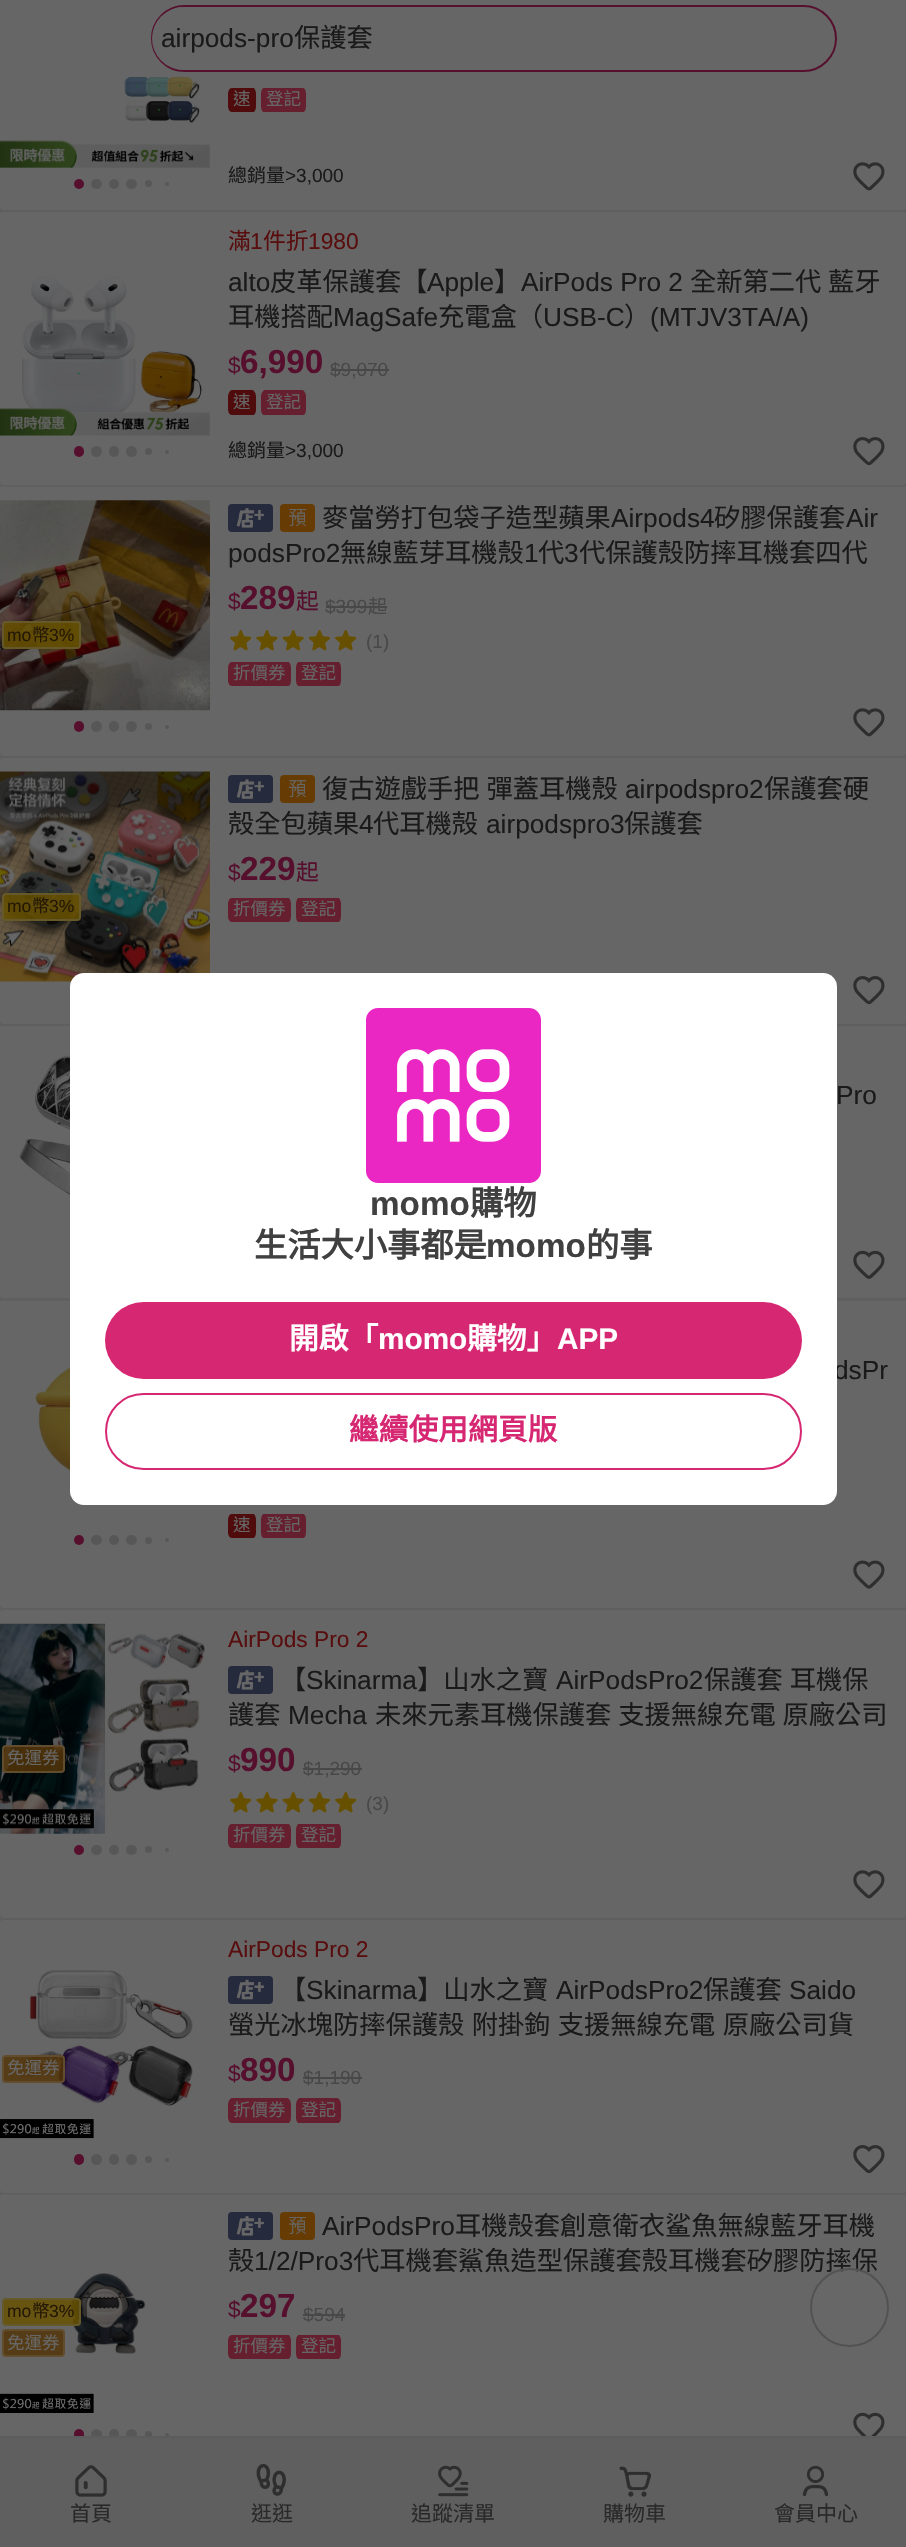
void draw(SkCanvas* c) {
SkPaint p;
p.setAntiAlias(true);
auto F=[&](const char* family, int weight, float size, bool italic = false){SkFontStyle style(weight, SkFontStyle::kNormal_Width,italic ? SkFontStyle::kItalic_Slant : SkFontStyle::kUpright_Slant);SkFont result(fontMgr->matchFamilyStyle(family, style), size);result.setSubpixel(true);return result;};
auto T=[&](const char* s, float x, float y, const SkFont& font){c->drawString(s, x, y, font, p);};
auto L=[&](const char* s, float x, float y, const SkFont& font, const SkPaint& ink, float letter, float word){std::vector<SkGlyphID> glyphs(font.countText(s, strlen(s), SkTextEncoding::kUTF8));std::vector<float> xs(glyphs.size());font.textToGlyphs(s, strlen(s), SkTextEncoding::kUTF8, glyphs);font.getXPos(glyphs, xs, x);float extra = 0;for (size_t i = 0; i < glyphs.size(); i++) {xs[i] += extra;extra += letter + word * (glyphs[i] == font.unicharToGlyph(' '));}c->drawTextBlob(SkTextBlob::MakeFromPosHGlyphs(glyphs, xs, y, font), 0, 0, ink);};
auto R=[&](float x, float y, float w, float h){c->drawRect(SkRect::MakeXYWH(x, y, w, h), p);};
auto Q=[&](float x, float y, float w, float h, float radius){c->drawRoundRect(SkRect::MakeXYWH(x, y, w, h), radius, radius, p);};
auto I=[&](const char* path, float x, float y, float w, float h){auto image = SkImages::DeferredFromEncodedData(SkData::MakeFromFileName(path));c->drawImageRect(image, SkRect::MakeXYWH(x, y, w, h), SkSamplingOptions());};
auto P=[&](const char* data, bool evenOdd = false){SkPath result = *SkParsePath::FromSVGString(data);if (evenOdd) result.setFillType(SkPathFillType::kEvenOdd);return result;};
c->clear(0xff5f5f5f);
p.setColor(0xff666666);
c->drawPath(P("M4-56h899c2 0 3 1 3 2v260c0 2-1 4-3 4h-899c-2 0-4-2-4-4v-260c0-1 2-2 4-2z"),p);
p.setStroke(true);
p.setStrokeWidth(2);
p.setColor(0xff56102e);
c->drawRoundRect(SkRect::MakeXYWH(152,6,684,65),32.5,32.5,p);
p.setStroke(false);
p.setColor(0xff666666);
Q(152,7,627,63,31.5);
auto f1 = F("Liberation Sans",400,26.25);
p.setColor(0xff1a1a1a);
T("airpods-pro",161,47,f1);
auto f2 = F("Noto Sans CJK TC",400,26.25);
T("保護套",294,47,f2);
I("1.png",14,77,186,46);
I("2.png",0,140,210,28);
p.setColor(0xff56102e);
c->drawCircle(79,184,5,p);
p.setColor(0xff575757);
Q(91,179,11,10,5);
c->drawCircle(114,184,5,p);
Q(126,179,11,10,5);
c->drawCircle(148.5,183.5,3.5,p);
c->drawCircle(167,184,2,p);
c->save();
c->clipPath(P("M232 88h653c2 0 4 2 4 4v16c0 2-2 4-4 4h-653c-2 0-4-2-4-4v-16c0-2 2-4 4-4z"),true);
p.setColor(0xff500c0c);
Q(228,86,28,28,7);
c->restore();
auto f3 = F("Noto Sans CJK TC",400,17.5);
p.setColor(0xff666666);
T("速",233,105,f3);
c->save();
c->clipPath(P("M232 88h653c2 0 4 2 4 4v16c0 2-2 4-4 4h-653c-2 0-4-2-4-4v-16c0-2 2-4 4-4z"),true);
p.setColor(0xff661f2f);
Q(261,86,45,28,7);
c->restore();
p.setColor(0xff666666);
T("登記",266,105,f3);
auto f4 = F("Noto Sans CJK TC",400,19);
p.setColor(0xff1a1a1a);
T("總銷量",228,182,f4);
auto f5 = F("Liberation Sans",400,19);
T(">3,000",285,182,f5);
I("3.png",853,162,32,29);
p.setColor(0xff666666);
c->drawPath(P("M4 212h899c2 0 3 1 3 2v267c0 2-1 4-3 4h-899c-2 0-4-2-4-4v-267c0-1 2-2 4-2z"),p);
I("4.png",22,276,180,137);
I("5.png",0,408,210,28);
p.setColor(0xff56102e);
Q(74,446,10,11,5);
p.setColor(0xff575757);
c->drawCircle(96.5,451.5,5.5,p);
Q(109,446,10,11,5);
c->drawCircle(131.5,451.5,5.5,p);
c->drawCircle(148.5,451.5,3.5,p);
c->drawCircle(167,452,2,p);
auto f6 = F("Noto Sans CJK TC",400,22.75);
p.setColor(0xff580e0e);
T("滿",228,249,f6);
auto f7 = F("Liberation Sans",400,22.75);
T("1",250,249,f7);
T("件折",263,249,f6);
T("1980",308,249,f7);
p.setColor(0xff1a1a1a);
T("alto",228,291,f1);
T("皮革保護套【",270,291,f2);
T("Apple",427,291,f1);
T("】",494,291,f2);
T("AirPods Pro 2",521,291,f1);
T("全新第二代",690,291,f2);
T("藍牙",828,291,f2);
T("耳機搭配",228,326,f2);
T("MagSafe",333,326,f1);
T("充電盒（",438,326,f2);
T("USB-C",543,326,f1);
T("）",624,326,f2);
T("(MTJV3TA/A)",650,326,f1);
p.setColor(0xff56102e);
T("$",228,373,f7);
auto f8 = F("Liberation Sans",700,33.25);
T("6,990",240,373,f8);
p.setColor(0xff484848);
T("$9,070",330,376,f5);
R(331,369,58,2);
c->save();
c->clipPath(P("M232 390h653c2 0 4 2 4 4v17c0 2-2 4-4 4h-653c-2 0-4-2-4-4v-17c0-2 2-4 4-4z"),true);
p.setColor(0xff500c0c);
Q(228,389,28,28,7);
c->restore();
p.setColor(0xff666666);
T("速",233,408,f3);
c->save();
c->clipPath(P("M232 390h653c2 0 4 2 4 4v17c0 2-2 4-4 4h-653c-2 0-4-2-4-4v-17c0-2 2-4 4-4z"),true);
p.setColor(0xff661f2f);
Q(261,389,45,28,7);
c->restore();
p.setColor(0xff666666);
T("登記",266,408,f3);
p.setColor(0xff1a1a1a);
T("總銷量",228,457,f4);
T(">3,000",285,457,f5);
I("6.png",853,437,32,29);
p.setColor(0xff666666);
c->drawPath(P("M4 486h899c2 0 3 1 3 2v264c0 2-1 4-3 4h-899c-2 0-4-2-4-4v-264c0-1 2-2 4-2z"),p);
p.setColor(0xff616161);
R(2,486,903,1);
I("7.png",0,500,210,211);
p.setColor(0xd9665000);
c->drawRoundRect(SkRect::MakeXYWH(3,622,77,26),3,3,p);
p.setStroke(true);
p.setColor(0xff665929);
c->drawRoundRect(SkRect::MakeXYWH(3,622,77,26),3,3,p);
auto f9 = F("Liberation Sans",400,17.5);
p.setStroke(false);
p.setColor(0xff251804);
T("mo",7,641,f9);
T("幣",32,641,f3);
T("3%",49,641,f9);
p.setColor(0xff56102e);
Q(74,721,10,11,5);
p.setColor(0xff575757);
c->drawCircle(96.5,726.5,5.5,p);
Q(109,721,10,11,5);
c->drawCircle(131.5,726.5,5.5,p);
c->drawCircle(148.5,726.5,3.5,p);
c->drawCircle(167,727,2,p);
p.setColor(0xff262a3d);
Q(228,504,45,28,4);
I("8.png",236,508,29,20);
p.setColor(0xff663c04);
Q(280,504,35,28,4);
I("9.png",289,509,18,17);
p.setColor(0xff1a1a1a);
T("麥當勞打包袋子造型蘋果",322,527,f2);
T("Airpods4",611,527,f1);
T("矽膠保護套",714,527,f2);
T("Air",846,527,f1);
T("podsPro2",228,562,f1);
T("無線藍芽耳機殼",340,562,f2);
T("1",524,562,f1);
T("代",538,562,f2);
T("3",564,562,f1);
T("代保護殼防摔耳機套四代",579,562,f2);
p.setColor(0xff56102e);
T("$",228,609,f7);
T("289",240,609,f8);
T("起",296,609,f6);
p.setColor(0xff484848);
T("$399",325,613,f5);
R(326,606,42,2);
T("起",368,613,f4);
R(368,606,19,2);
I("10.png",230,630,22,21);
I("11.png",256,630,22,21);
I("12.png",282,630,22,21);
I("13.png",308,630,22,21);
I("10.png",335,630,22,21);
T("(1)",366,648,f5);
c->save();
c->clipPath(P("M232 662h653c2 0 4 2 4 4v16c0 2-2 4-4 4h-653c-2 0-4-2-4-4v-16c0-2 2-4 4-4z"),true);
p.setColor(0xff661f2f);
Q(228,660,63,28,7);
c->restore();
p.setColor(0xff666666);
T("折價券",233,679,f3);
c->save();
c->clipPath(P("M232 662h653c2 0 4 2 4 4v16c0 2-2 4-4 4h-653c-2 0-4-2-4-4v-16c0-2 2-4 4-4z"),true);
p.setColor(0xff661f2f);
Q(296,660,45,28,7);
c->restore();
p.setColor(0xff666666);
T("登記",301,679,f3);
I("3.png",853,708,32,29);
c->drawPath(P("M4 758h899c2 0 3 1 3 2v260c0 2-1 4-3 4h-899c-2 0-4-2-4-4v-260c0-1 2-2 4-2z"),p);
I("14.png",0,771,210,211);
p.setColor(0xd9665000);
c->drawRoundRect(SkRect::MakeXYWH(3,894,77,26),3,3,p);
p.setStroke(true);
p.setColor(0xff665929);
c->drawRoundRect(SkRect::MakeXYWH(3,894,77,26),3,3,p);
p.setStroke(false);
p.setColor(0xff251804);
T("mo",7,912,f9);
T("幣",32,912,f3);
T("3%",49,912,f9);
p.setColor(0xff262a3d);
Q(228,775,45,28,4);
I("15.png",236,779,29,20);
p.setColor(0xff663c04);
Q(280,775,35,28,4);
I("16.png",288,780,19,17);
p.setColor(0xff1a1a1a);
L("復古遊戲手把 彈蓋耳機殼",322,798,f2,p,0,1);
T("airpodspro2",625,798,f1);
T("保護套硬",764,798,f2);
T("殻全包蘋果",228,833,f2);
T("4",359,833,f1);
T("代耳機殻",373,833,f2);
T("airpodspro3",486,833,f1);
T("保護套",624,833,f2);
p.setColor(0xff56102e);
T("$",228,880,f7);
T("229",240,880,f8);
T("起",296,880,f6);
c->save();
c->clipPath(P("M232 898h653c2 0 4 2 4 4v16c0 2-2 4-4 4h-653c-2 0-4-2-4-4v-16c0-2 2-4 4-4z"),true);
p.setColor(0xff661f2f);
Q(228,896,63,28,7);
c->restore();
p.setColor(0xff666666);
T("折價券",233,915,f3);
c->save();
c->clipPath(P("M232 898h653c2 0 4 2 4 4v16c0 2-2 4-4 4h-653c-2 0-4-2-4-4v-16c0-2 2-4 4-4z"),true);
p.setColor(0xff661f2f);
Q(296,896,45,28,7);
c->restore();
p.setColor(0xff666666);
T("登記",301,915,f3);
I("6.png",853,976,32,29);
c->drawPath(P("M4 1026h899c2 0 3 0 3 1v268c0 2-1 3-3 3h-899c-2 0-4-1-4-3v-268c0-1 2-1 4-1z"),p);
I("17.png",19,1055,51,178);
p.setColor(0xff1a1a1a);
T("Pro",836,1104,f1);
I("18.png",853,1250,32,29);
p.setColor(0xff666666);
c->drawPath(P("M4 1300h899c2 0 3 1 3 2v303c0 2-1 3-3 3h-899c-2 0-4-1-4-3v-303c0-1 2-2 4-2z"),p);
p.setColor(0xff616161);
R(2,1300,903,1);
I("19.png",34,1358,39,141);
p.setColor(0xff56102e);
c->drawCircle(79,1540,5,p);
p.setColor(0xff575757);
Q(91,1535,11,10,5);
c->drawCircle(114,1540,5,p);
Q(126,1535,11,10,5);
c->drawCircle(148.5,1540.5,3.5,p);
c->drawCircle(167,1540,2,p);
p.setColor(0xff1a1a1a);
T("dsPr",834,1379,f1);
c->save();
c->clipPath(P("M232 1514h653c2 0 4 2 4 4v16c0 2-2 4-4 4h-653c-2 0-4-2-4-4v-16c0-2 2-4 4-4z"),true);
p.setColor(0xff500c0c);
Q(228,1512,28,28,7);
c->restore();
p.setColor(0xff666666);
T("速",233,1531,f3);
c->save();
c->clipPath(P("M232 1514h653c2 0 4 2 4 4v16c0 2-2 4-4 4h-653c-2 0-4-2-4-4v-16c0-2 2-4 4-4z"),true);
p.setColor(0xff661f2f);
Q(261,1512,45,28,7);
c->restore();
p.setColor(0xff666666);
T("登記",266,1531,f3);
I("20.png",853,1560,32,29);
c->drawPath(P("M4 1610h899c2 0 3 1 3 2v302c0 2-1 4-3 4h-899c-2 0-4-2-4-4v-302c0-1 2-2 4-2z"),p);
I("21.png",0,1623,205,211);
p.setColor(0xd9523408);
c->drawRoundRect(SkRect::MakeXYWH(3,1746,61,26),3,3,p);
p.setStroke(true);
p.setColor(0xff614c2e);
c->drawRoundRect(SkRect::MakeXYWH(3,1746,61,26),3,3,p);
p.setStroke(false);
p.setColor(0xff666666);
T("免運券",7,1764,f3);
I("22.png",0,1809,94,20);
p.setColor(0xff56102e);
c->drawCircle(79,1850,5,p);
p.setColor(0xff575757);
Q(91,1845,11,10,5);
c->drawCircle(114,1850,5,p);
Q(126,1845,11,10,5);
c->drawCircle(148.5,1849.5,3.5,p);
c->drawCircle(167,1850,2,p);
p.setColor(0xff580e0e);
T("AirPods Pro 2",228,1647,f7);
p.setColor(0xff262a3d);
Q(228,1666,45,28,4);
I("8.png",236,1670,29,20);
p.setColor(0xff1a1a1a);
T("【",280,1689,f2);
T("Skinarma",306,1689,f1);
T("】山水之寶",417,1689,f2);
T("AirPodsPro2",556,1689,f1);
L("保護套 耳機保",704,1689,f2,p,0,1);
T("護套",228,1724,f2);
T("Mecha",288,1724,f1);
L("未來元素耳機保護套 支援無線充電 原廠公司",375,1724,f2,p,0,1);
p.setColor(0xff56102e);
T("$",228,1771,f7);
T("990",240,1771,f8);
p.setColor(0xff484848);
T("$1,290",303,1775,f5);
R(303,1768,59,2);
I("10.png",230,1792,22,21);
I("11.png",256,1792,22,21);
I("12.png",282,1792,22,21);
I("13.png",308,1792,22,21);
I("10.png",335,1792,22,21);
T("(3)",366,1810,f5);
c->save();
c->clipPath(P("M232 1824h653c2 0 4 2 4 4v16c0 2-2 4-4 4h-653c-2 0-4-2-4-4v-16c0-2 2-4 4-4z"),true);
p.setColor(0xff661f2f);
Q(228,1822,63,28,7);
c->restore();
p.setColor(0xff666666);
T("折價券",233,1841,f3);
c->save();
c->clipPath(P("M232 1824h653c2 0 4 2 4 4v16c0 2-2 4-4 4h-653c-2 0-4-2-4-4v-16c0-2 2-4 4-4z"),true);
p.setColor(0xff661f2f);
Q(296,1822,45,28,7);
c->restore();
p.setColor(0xff666666);
T("登記",301,1841,f3);
I("3.png",853,1870,32,29);
c->drawPath(P("M4 1920h899c2 0 3 1 3 2v267c0 2-1 4-3 4h-899c-2 0-4-2-4-4v-267c0-1 2-2 4-2z"),p);
I("23.png",17,1970,176,136);
p.setColor(0xd9523408);
c->drawRoundRect(SkRect::MakeXYWH(3,2056,61,26),3,3,p);
p.setStroke(true);
p.setColor(0xff614c2e);
c->drawRoundRect(SkRect::MakeXYWH(3,2056,61,26),3,3,p);
p.setStroke(false);
p.setColor(0xff666666);
T("免運券",7,2074,f3);
I("24.png",0,2119,94,20);
p.setColor(0xff56102e);
Q(74,2154,10,11,5);
p.setColor(0xff575757);
c->drawCircle(96.5,2159.5,5.5,p);
Q(109,2154,10,11,5);
c->drawCircle(131.5,2159.5,5.5,p);
c->drawCircle(148.5,2159.5,3.5,p);
c->drawCircle(167,2160,2,p);
p.setColor(0xff580e0e);
T("AirPods Pro 2",228,1957,f7);
p.setColor(0xff262a3d);
Q(228,1976,45,28,4);
I("25.png",236,1979,29,21);
p.setColor(0xff1a1a1a);
T("【",280,1999,f2);
T("Skinarma",306,1999,f1);
T("】山水之寶",417,1999,f2);
T("AirPodsPro2",556,1999,f1);
T("保護套",703,1999,f2);
T("Saido",789,1999,f1);
L("螢光冰塊防摔保護殼 附掛鉤 支援無線充電 原廠公司貨",228,2034,f2,p,0,1.5);
p.setColor(0xff56102e);
T("$",228,2081,f7);
T("890",240,2081,f8);
p.setColor(0xff484848);
T("$1,190",303,2084,f5);
R(303,2077,59,2);
c->save();
c->clipPath(P("M232 2098h653c2 0 4 2 4 4v17c0 2-2 4-4 4h-653c-2 0-4-2-4-4v-17c0-2 2-4 4-4z"),true);
p.setColor(0xff661f2f);
Q(228,2097,63,28,7);
c->restore();
p.setColor(0xff666666);
T("折價券",233,2116,f3);
c->save();
c->clipPath(P("M232 2098h653c2 0 4 2 4 4v17c0 2-2 4-4 4h-653c-2 0-4-2-4-4v-17c0-2 2-4 4-4z"),true);
p.setColor(0xff661f2f);
Q(296,2097,45,28,7);
c->restore();
p.setColor(0xff666666);
T("登記",301,2116,f3);
I("6.png",853,2145,32,29);
c->drawPath(P("M4 2194h899c2 0 3 1 3 2v261c0 2-1 3-3 3h-899c-2 0-4-1-4-3v-261c0-1 2-2 4-2z"),p);
p.setColor(0xff616161);
R(2,2194,903,1);
I("26.png",70,2273,76,81);
p.setColor(0xd9665000);
c->drawRoundRect(SkRect::MakeXYWH(3,2299,77,26),3,3,p);
p.setStroke(true);
p.setColor(0xff665929);
c->drawRoundRect(SkRect::MakeXYWH(3,2299,77,26),3,3,p);
p.setStroke(false);
p.setColor(0xff251804);
T("mo",7,2317,f9);
T("幣",32,2317,f3);
T("3%",49,2317,f9);
p.setColor(0xff553c16);
c->drawRoundRect(SkRect::MakeXYWH(3,2330,61,26),3,3,p);
p.setStroke(true);
p.setColor(0xff614c2e);
c->drawRoundRect(SkRect::MakeXYWH(3,2330,61,26),3,3,p);
p.setStroke(false);
p.setColor(0xff666666);
T("免運券",7,2349,f3);
I("27.png",0,2393,94,20);
p.setColor(0xff56102e);
Q(74,2429,10,11,5);
p.setColor(0xff575757);
c->drawCircle(96.5,2434.5,5.5,p);
Q(109,2429,10,11,5);
c->drawCircle(131.5,2434.5,5.5,p);
c->drawCircle(148.5,2434.5,3.5,p);
c->drawCircle(167,2435,2,p);
p.setColor(0xff262a3d);
Q(228,2212,45,28,4);
I("8.png",236,2216,29,20);
p.setColor(0xff663c04);
Q(280,2212,35,28,4);
I("9.png",289,2217,18,17);
p.setColor(0xff1a1a1a);
T("AirPodsPro",322,2235,f1);
T("耳機殼套創意衛衣鲨魚無線藍牙耳機",455,2235,f2);
T("殼",228,2270,f2);
T("1/2/Pro3",254,2270,f1);
T("代耳機套鯊魚造型保護套殼耳機套矽膠防摔保",353,2270,f2);
p.setColor(0xff56102e);
T("$",228,2317,f7);
T("297",240,2317,f8);
p.setColor(0xff484848);
T("$594",303,2321,f5);
R(303,2314,42,2);
c->save();
c->clipPath(P("M232 2335h653c2 0 4 2 4 4v16c0 2-2 4-4 4h-653c-2 0-4-2-4-4v-16c0-2 2-4 4-4z"),true);
p.setColor(0xff661f2f);
Q(228,2333,63,28,7);
c->restore();
p.setColor(0xff666666);
T("折價券",233,2352,f3);
c->save();
c->clipPath(P("M232 2335h653c2 0 4 2 4 4v16c0 2-2 4-4 4h-653c-2 0-4-2-4-4v-16c0-2 2-4 4-4z"),true);
p.setColor(0xff661f2f);
Q(296,2333,45,28,7);
c->restore();
p.setColor(0xff666666);
T("登記",301,2352,f3);
I("28.png",853,2412,32,24);
p.setColor(0xffffffff);
Q(70,973,767,532,14);
I("29.png",366,1008,175,175);
p.setColor(0xff404040);
T("momo",370,1215,f8);
auto f10 = F("Noto Sans CJK TC",700,33.25);
T("購物",470,1215,f10);
T("生活大小事都是",254,1257,f10);
T("momo",486,1257,f8);
T("的事",586,1257,f10);
p.setColor(0xffd62872);
Q(105,1302,697,77,38.5);
auto f11 = F("Noto Sans CJK TC",700,29.75);
p.setColor(0xffffffff);
T("開啟「",289,1349,f11);
auto f12 = F("Liberation Sans",700,29.75);
T("momo",378,1349,f12);
T("購物」",467,1349,f11);
T("APP",557,1349,f12);
p.setStroke(true);
p.setColor(0xffd62872);
c->drawRoundRect(SkRect::MakeXYWH(106,1394,695,75),37.5,37.5,p);
p.setStroke(false);
T("繼續使用網頁版",349,1440,f11);
p.setColor(0xb3666666);
c->drawCircle(849.5,2307.5,38.5,p);
p.setStroke(true);
p.setColor(0xff525252);
c->drawCircle(849.5,2307.5,38.5,p);
p.setStroke(false);
p.setColor(0xff5f5f5f);
R(0,2438,906,22);
p.setColor(0xff5c5c5e);
R(0,2436,906,2);
I("30.png",75,2465,32,32);
auto f13 = F("Noto Sans CJK TC",400,21);
p.setColor(0xff292929);
T("首頁",70,2521,f13);
I("31.png",256,2463,30,33);
T("逛逛",251,2521,f13);
I("32.png",438,2465,31,32);
T("追蹤清單",411,2521,f13);
I("33.png",619,2466,32,31);
T("購物車",603,2521,f13);
I("34.png",802,2465,27,32);
T("會員中心",774,2521,f13);
}
